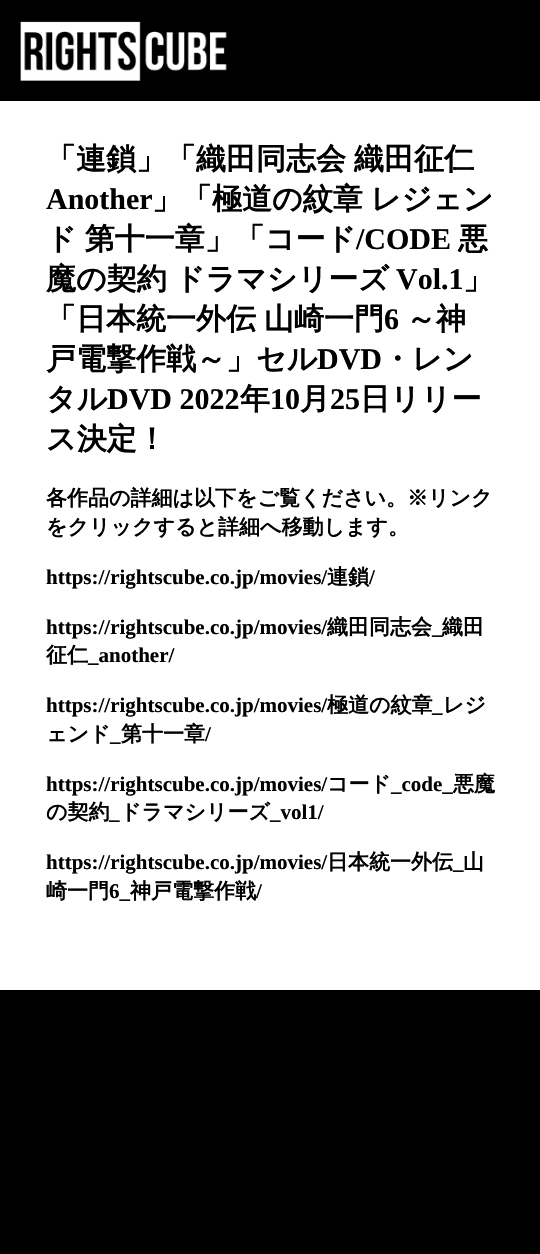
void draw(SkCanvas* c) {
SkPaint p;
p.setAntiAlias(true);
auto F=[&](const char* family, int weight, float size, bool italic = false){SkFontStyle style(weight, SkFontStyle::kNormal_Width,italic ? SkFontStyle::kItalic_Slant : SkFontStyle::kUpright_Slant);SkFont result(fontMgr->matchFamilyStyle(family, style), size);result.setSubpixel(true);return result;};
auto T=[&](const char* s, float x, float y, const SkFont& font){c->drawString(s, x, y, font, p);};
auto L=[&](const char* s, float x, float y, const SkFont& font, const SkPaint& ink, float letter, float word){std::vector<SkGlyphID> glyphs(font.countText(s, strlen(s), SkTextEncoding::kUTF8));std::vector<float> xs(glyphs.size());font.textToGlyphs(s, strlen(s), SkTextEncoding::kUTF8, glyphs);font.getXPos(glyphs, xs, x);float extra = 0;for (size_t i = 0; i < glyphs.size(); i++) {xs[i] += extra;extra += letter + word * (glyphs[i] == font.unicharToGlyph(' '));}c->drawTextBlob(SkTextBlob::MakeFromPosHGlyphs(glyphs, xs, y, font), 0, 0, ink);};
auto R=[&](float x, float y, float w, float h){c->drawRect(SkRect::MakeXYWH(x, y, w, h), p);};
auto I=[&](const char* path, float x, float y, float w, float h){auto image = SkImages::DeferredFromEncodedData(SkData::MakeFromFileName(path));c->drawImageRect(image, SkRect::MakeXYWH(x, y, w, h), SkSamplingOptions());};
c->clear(0xffffffff);
p.setColor(0xff000000);
R(0,0,540,101);
I("1.png",20,21,207,60);
auto f1 = F("WenQuanYi Zen Hei",700,30);
L("「連鎖」「織田同志会 織田征仁",46,169,f1,p,0,-1);
auto f2 = F("Liberation Serif",700,30);
T("Another",46,209,f2);
L("」「極道の紋章 レジェン",152,209,f1,p,0,-1);
L("ド 第十一章」「コード",46,249,f1,p,0,-1);
T("/CODE",356,249,f2);
T("悪",458,249,f1);
L("魔の契約 ドラマシリーズ",46,289,f1,p,0,-1);
T("Vol.1",396,289,f2);
T("」",463,289,f1);
L("「日本統一外伝 山崎一門",46,329,f1,p,0,-1);
T("6",384,329,f2);
T("～神",406,329,f1);
T("戸電撃作戦～」セル",46,369,f1);
T("DVD",317,369,f2);
T("・レン",382,369,f1);
T("タル",46,409,f1);
T("DVD 2022",107,409,f2);
T("年",240,409,f1);
T("10",270,409,f2);
T("月",300,409,f1);
T("25",330,409,f2);
T("日リリー",360,409,f1);
T("ス決定！",46,449,f1);
auto f3 = F("WenQuanYi Zen Hei",700,21);
T("各作品の詳細は以下をご覧ください。※リンク",46,505,f3);
T("をクリックすると詳細へ移動します。",46,534,f3);
auto f4 = F("Liberation Serif",700,21);
T("https://rightscube.co.jp/movies/",46,584,f4);
T("連鎖",327,584,f3);
T("/",369,584,f4);
T("https://rightscube.co.jp/movies/",46,634,f4);
T("織田同志会",327,634,f3);
T("_",432,634,f4);
T("織田",442,634,f3);
T("征仁",46,662,f3);
T("_another/",88,662,f4);
T("https://rightscube.co.jp/movies/",46,712,f4);
T("極道の紋章",327,712,f3);
T("_",432,712,f4);
T("レジ",443,712,f3);
T("ェンド",46,741,f3);
T("第十一章",121,741,f3);
T("/",205,741,f4);
T("_",110,741,f4);
T("https://rightscube.co.jp/movies/",46,791,f4);
T("コード",327,791,f3);
T("_code_",391,791,f4);
T("悪魔",453,791,f3);
T("の契約",46,819,f3);
T("_",109,819,f4);
T("ドラマシリーズ",120,819,f3);
T("_vol1/",270,819,f4);
T("https://rightscube.co.jp/movies/",46,869,f4);
T("日本統一外伝",327,869,f3);
T("_",453,869,f4);
T("山",463,869,f3);
T("崎一門",46,898,f3);
T("6_",109,898,f4);
T("神戸電撃作戦",130,898,f3);
T("/",256,898,f4);
R(0,990,540,264);
}
